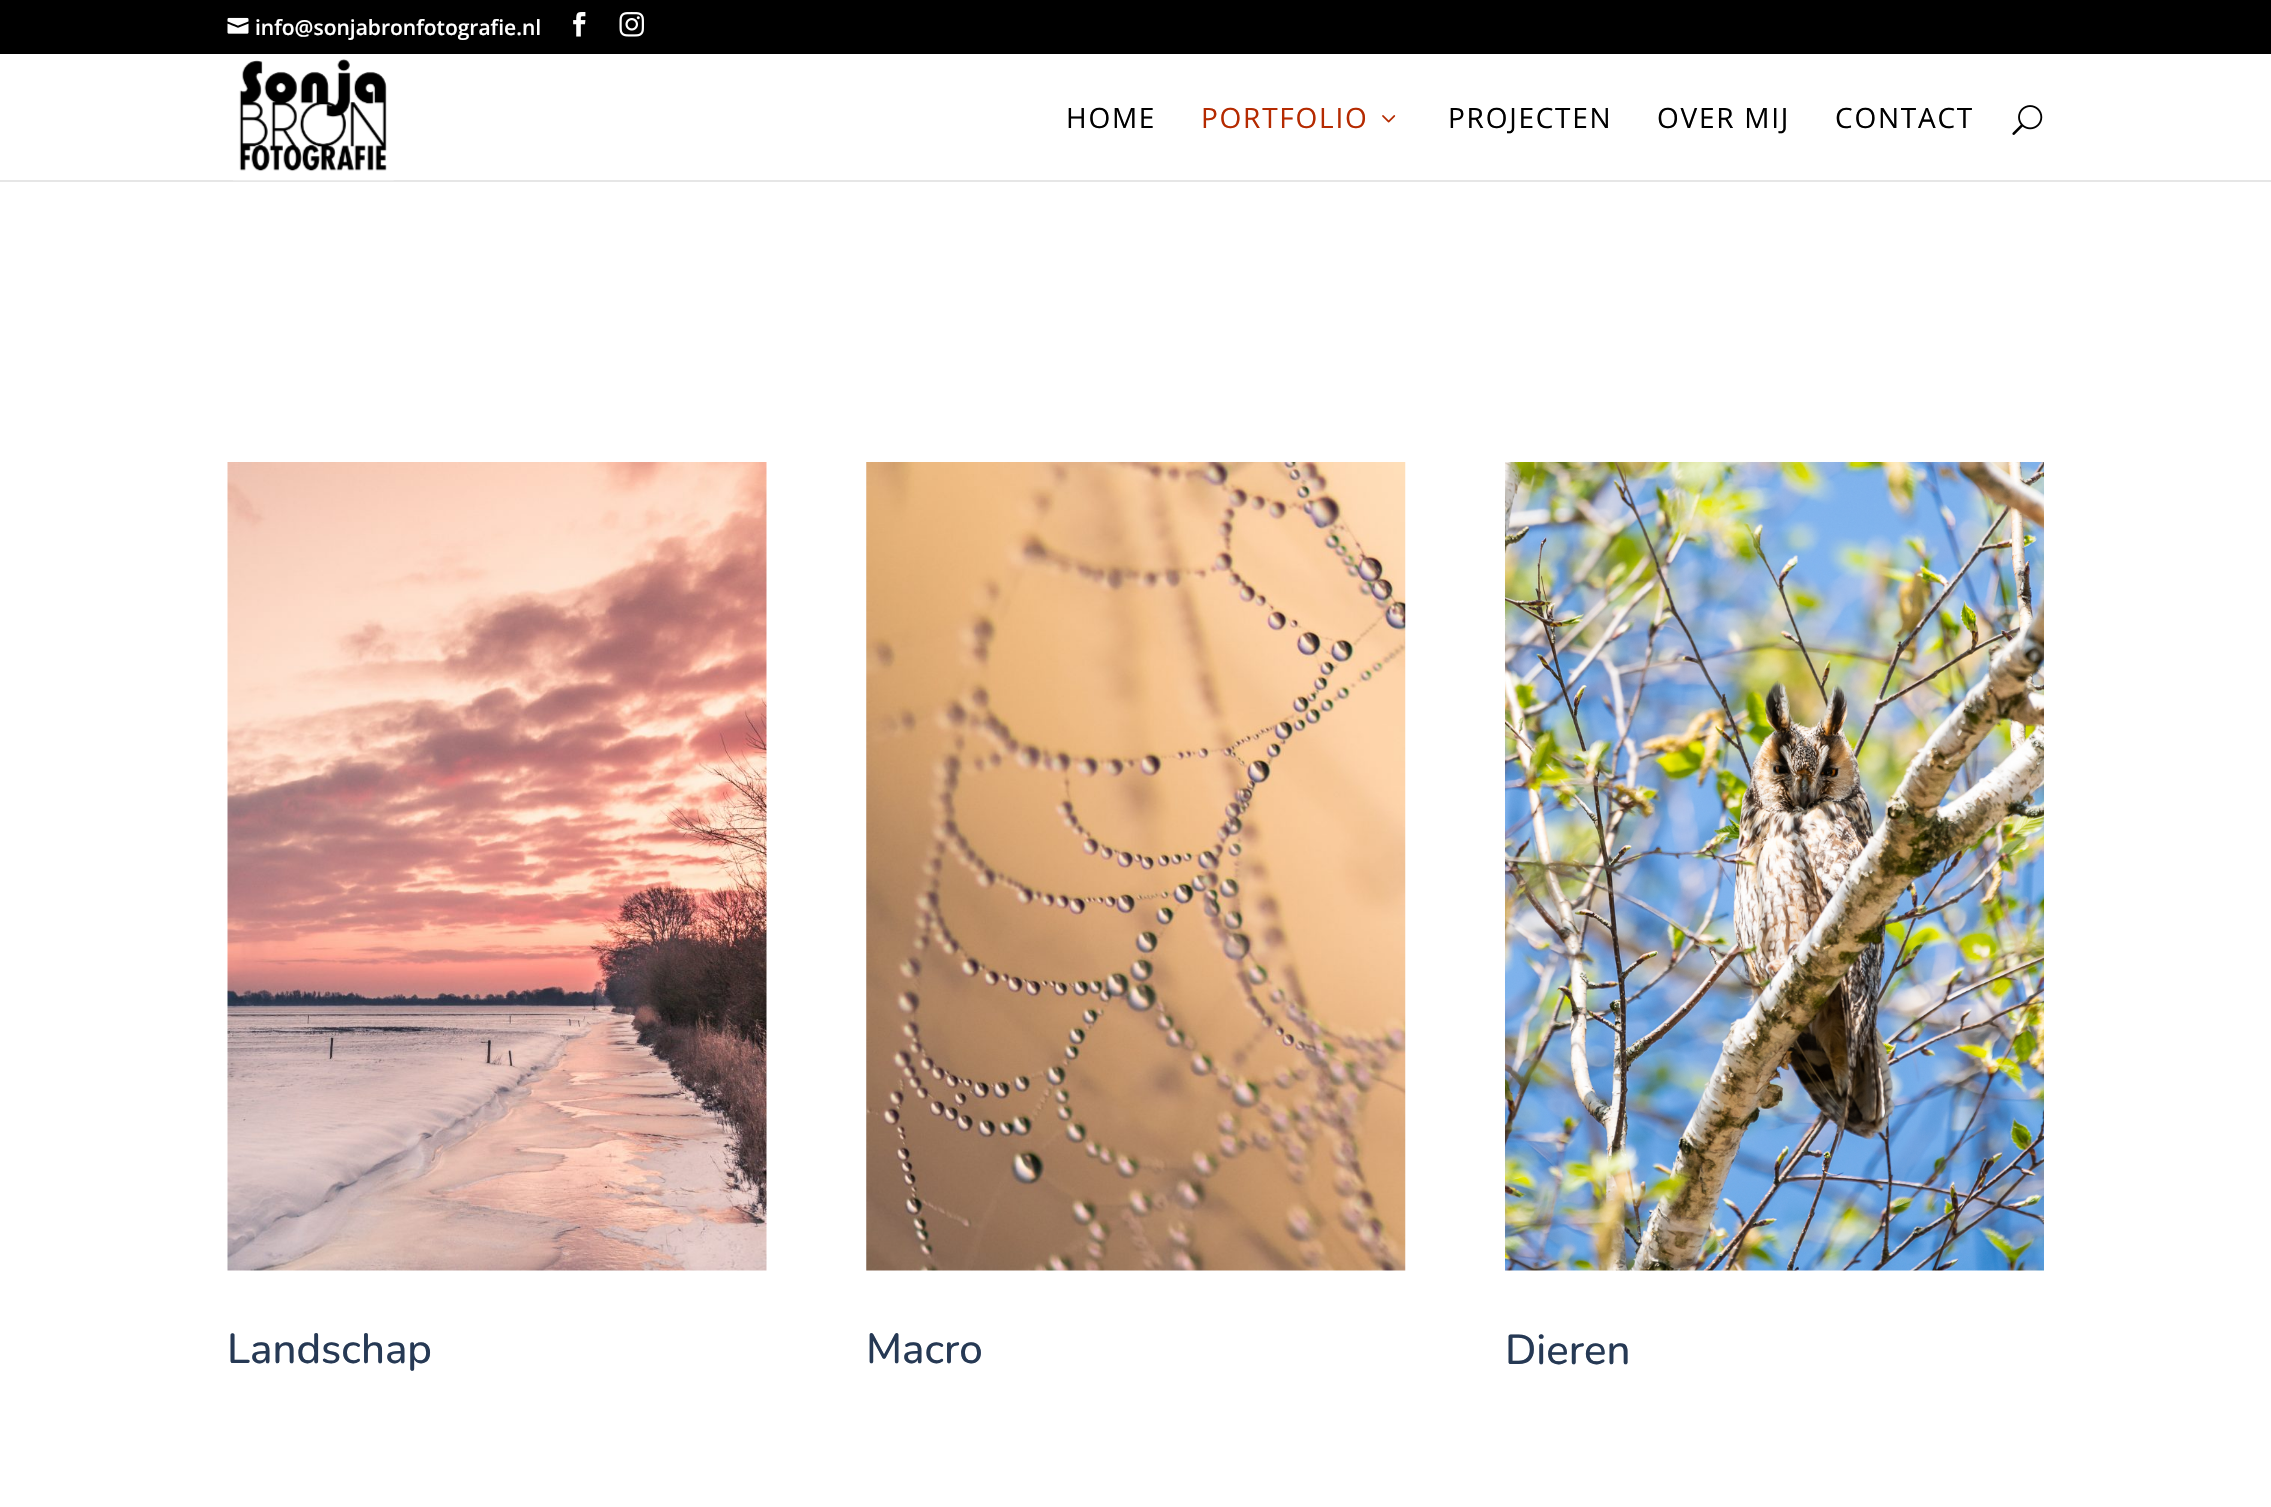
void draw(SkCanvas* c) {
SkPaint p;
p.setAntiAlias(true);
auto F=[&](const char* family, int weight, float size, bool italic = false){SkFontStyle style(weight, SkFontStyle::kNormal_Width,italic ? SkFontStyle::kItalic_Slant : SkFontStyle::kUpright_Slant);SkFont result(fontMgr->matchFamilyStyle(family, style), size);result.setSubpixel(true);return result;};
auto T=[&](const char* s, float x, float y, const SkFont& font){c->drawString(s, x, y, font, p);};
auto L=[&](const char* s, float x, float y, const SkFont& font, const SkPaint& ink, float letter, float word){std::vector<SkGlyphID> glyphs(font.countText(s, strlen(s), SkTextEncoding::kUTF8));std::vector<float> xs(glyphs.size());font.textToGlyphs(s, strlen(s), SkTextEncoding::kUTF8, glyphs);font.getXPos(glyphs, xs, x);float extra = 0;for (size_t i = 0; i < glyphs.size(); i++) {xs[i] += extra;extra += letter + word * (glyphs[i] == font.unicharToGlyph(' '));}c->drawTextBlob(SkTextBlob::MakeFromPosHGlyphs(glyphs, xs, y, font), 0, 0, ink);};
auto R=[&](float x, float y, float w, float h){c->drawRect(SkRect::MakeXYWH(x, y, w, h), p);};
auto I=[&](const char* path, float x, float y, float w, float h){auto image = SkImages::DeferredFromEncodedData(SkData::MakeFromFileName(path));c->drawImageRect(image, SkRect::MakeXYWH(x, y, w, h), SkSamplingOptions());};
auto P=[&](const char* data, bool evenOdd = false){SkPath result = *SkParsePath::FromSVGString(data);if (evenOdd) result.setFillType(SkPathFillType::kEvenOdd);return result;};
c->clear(0xffffffff);
p.setColor(0xff000000);
R(0,0,2271,54);
I("1.png",227,17,22,17);
auto f1 = F("Open Sans",600,21);
p.setColor(0xffffffff);
T("info@sonjabronfotografie.nl",255,35,f1);
I("2.png",573,12,13,25);
I("3.png",619,12,25,25);
p.setColor(0xffe6e6e6);
c->drawPath(P("M0 180v2h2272v-126v124z"),p);
I("4.png",233,59,161,122);
auto f2 = F("Open Sans",400,28);
p.setColor(0xff000000);
L("HOME",1066,128,f2,p,1.75,0);
p.setColor(0xffb52a00);
L("PORTFOLIO",1201,128,f2,p,1.75,0);
I("5.png",1382,115,14,8);
p.setColor(0xff000000);
L("PROJECTEN",1448,128,f2,p,1.75,0);
L("OVER MIJ",1657,128,f2,p,1.75,0);
L("CONTACT",1835,128,f2,p,1.75,0);
I("6.png",2012,105,31,30);
I("7.png",227,462,540,809);
auto f3 = F("Nunito",200,42);
p.setColor(0xff263954);
T("Landschap",227,1363,f3);
I("8.png",866,462,540,809);
T("Macro",866,1363,f3);
I("9.png",1505,462,539,809);
T("Dieren",1505,1364,f3);
}
